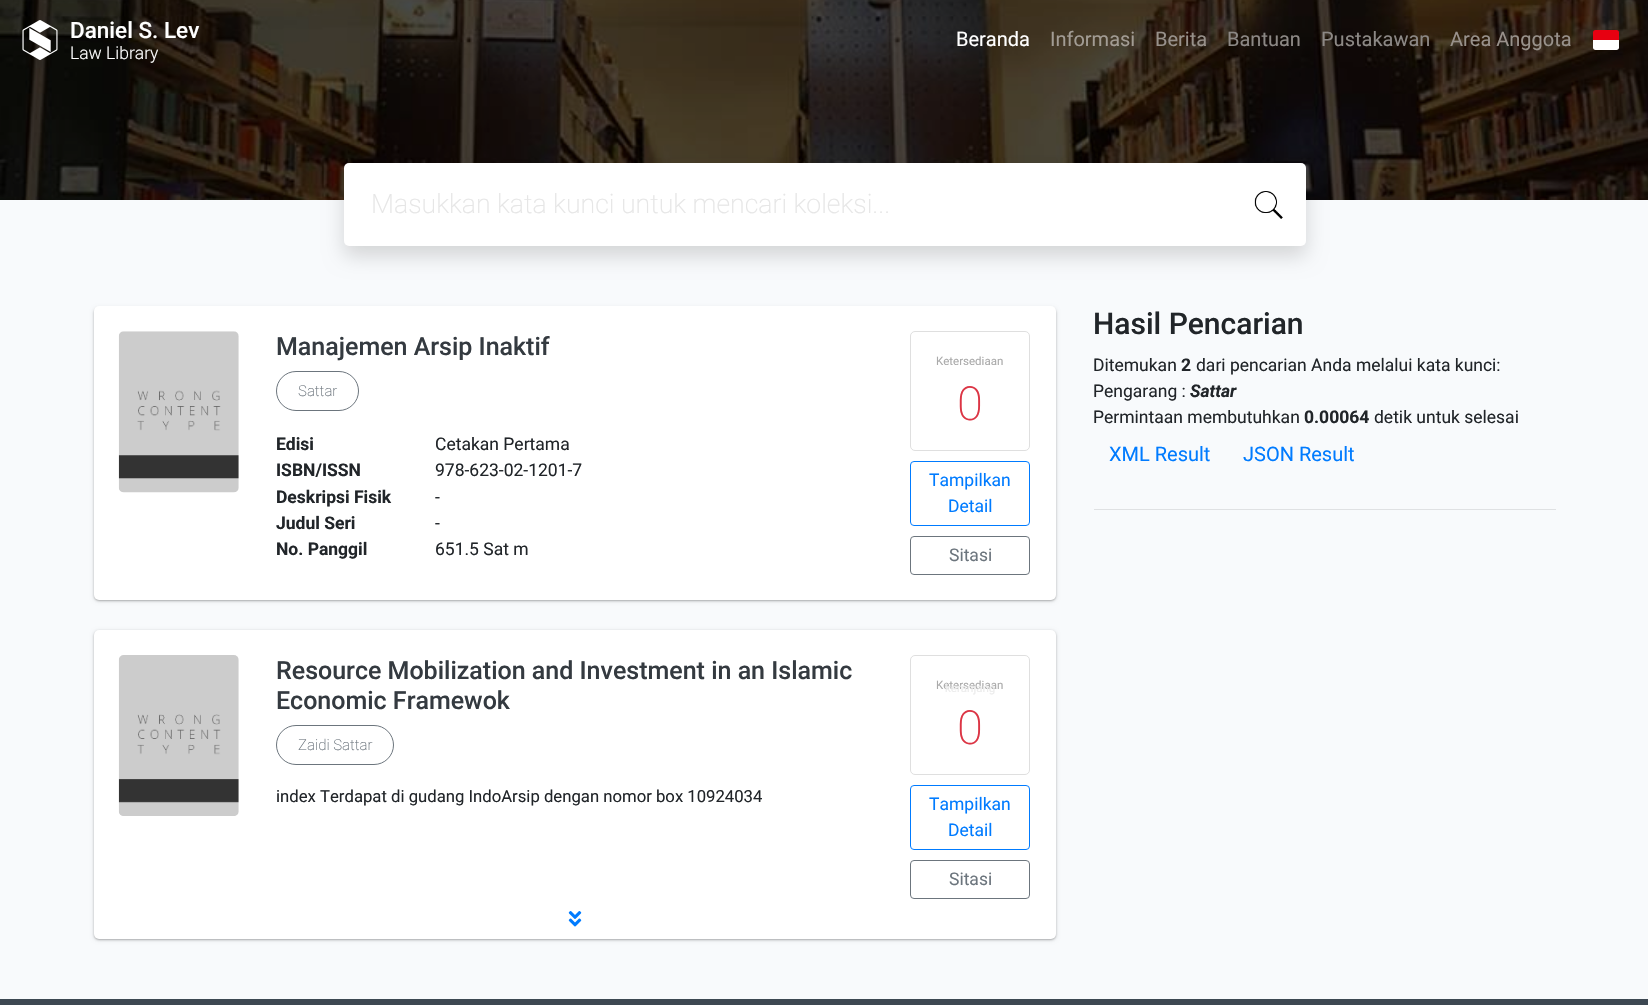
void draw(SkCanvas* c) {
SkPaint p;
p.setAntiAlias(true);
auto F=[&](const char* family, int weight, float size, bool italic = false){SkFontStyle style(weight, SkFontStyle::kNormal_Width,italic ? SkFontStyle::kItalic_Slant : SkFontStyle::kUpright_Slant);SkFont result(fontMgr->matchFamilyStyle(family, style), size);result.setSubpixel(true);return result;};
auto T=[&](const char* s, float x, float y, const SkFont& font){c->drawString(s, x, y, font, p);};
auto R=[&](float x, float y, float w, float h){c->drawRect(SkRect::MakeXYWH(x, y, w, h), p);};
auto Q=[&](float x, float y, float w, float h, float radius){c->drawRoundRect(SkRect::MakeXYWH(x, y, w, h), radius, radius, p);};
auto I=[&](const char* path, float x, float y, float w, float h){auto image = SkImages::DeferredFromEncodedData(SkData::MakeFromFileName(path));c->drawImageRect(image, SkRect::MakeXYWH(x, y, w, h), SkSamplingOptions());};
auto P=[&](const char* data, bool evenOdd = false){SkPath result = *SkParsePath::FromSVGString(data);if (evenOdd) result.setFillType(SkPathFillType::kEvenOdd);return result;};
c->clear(0xfff8fafc);
I("1.png",0,0,1648,200);
I("2.png",22,20,36,40);
auto f1 = F("Roboto",500,22.5);
p.setColor(0xffffffff);
T("Daniel S. Lev",70,38,f1);
auto f2 = F("Roboto",300,17.5);
T("Law Library",70,59,f2);
auto f3 = F("Roboto",400,20);
T("Beranda",956,46,f3);
p.setColor(0xffa29c94);
T("Informasi",1050,46,f3);
p.setColor(0xff98918b);
T("Berita",1155,46,f3);
p.setColor(0xff8c8885);
T("Bantuan",1227,46,f3);
T("Pustakawan",1321,46,f3);
p.setColor(0xff98918b);
T("Area Anggota",1450,46,f3);
p.setColor(0xffe70011);
c->drawPath(P("M1595.5 30h21c1.5 0 2.5 1 2.5 2.5v8.5h-26v-8.5c0-1.5 1-2.5 2.5-2.5z"),p);
p.setColor(0xffffffff);
c->drawPath(P("M1593 40h26v7.5c0 1.5-1 2.5-2.5 2.5h-21c-1.5 0-2.5-1-2.5-2.5z"),p);
p.setColor(0x26000000);
p.setMaskFilter(SkMaskFilter::MakeBlur(kNormal_SkBlurStyle, 10));
c->drawRoundRect(SkRect::MakeXYWH(344,173,962,83),5,5,p);
p.setMaskFilter(nullptr);
p.setColor(0xffffffff);
Q(344,163,962,83,5);
I("3.png",1254,191,29,28);
auto f4 = F("Roboto",200,26.7);
p.setColor(0xffe6e6e6);
T("Masukkan kata kunci untuk mencari koleksi...",371,213,f4);
p.setColor(0x3d000000);
p.setMaskFilter(SkMaskFilter::MakeBlur(kNormal_SkBlurStyle, 1));
c->drawRoundRect(SkRect::MakeXYWH(94,308,962,293),5,5,p);
p.setMaskFilter(nullptr);
p.setColor(0x1f000000);
p.setMaskFilter(SkMaskFilter::MakeBlur(kNormal_SkBlurStyle, 2));
c->drawRoundRect(SkRect::MakeXYWH(94,308,962,293),5,5,p);
p.setMaskFilter(nullptr);
p.setColor(0xffffffff);
Q(94,306,962,294,5);
I("4.png",118,331,121,162);
auto f5 = F("Roboto",500,25);
p.setColor(0xff343a40);
T("Manajemen Arsip Inaktif",276,355,f5);
p.setStroke(true);
p.setStrokeWidth(1);
p.setColor(0xff6c757d);
c->drawRoundRect(SkRect::MakeXYWH(276.5,371.5,82,39),19.5,19.5,p);
auto f6 = F("Roboto",200,15);
p.setStroke(false);
T("Sattar",298,396,f6);
auto f7 = F("Roboto",700,17.5);
p.setColor(0xff212529);
T("Edisi",276,450,f7);
auto f8 = F("Roboto",400,17.5);
T("Cetakan Pertama",435,450,f8);
T("ISBN/ISSN",276,476,f7);
T("978-623-02-1201-7",435,476,f8);
T("Deskripsi Fisik",276,503,f7);
T("-",435,503,f8);
T("Judul Seri",276,529,f7);
T("-",435,529,f8);
T("No. Panggil",276,555,f7);
T("651.5 Sat m",435,555,f8);
p.setStroke(true);
p.setColor(0xffdfdfdf);
c->drawRoundRect(SkRect::MakeXYWH(910.5,331.5,119,119),4.5,4.5,p);
auto f9 = F("Roboto",400,11.5);
p.setStroke(false);
p.setColor(0xffaaaaaa);
T("Ketersediaan",936,365,f9);
auto f10 = F("Roboto",200,47);
p.setColor(0xffdc3545);
T("0",957,420,f10);
p.setStroke(true);
p.setColor(0xff007bff);
c->drawRoundRect(SkRect::MakeXYWH(910.5,461.5,119,64),3.5,3.5,p);
p.setStroke(false);
T("Tampilkan",929,486,f8);
T("Detail",948,512,f8);
p.setStroke(true);
p.setColor(0xff6c757d);
c->drawRoundRect(SkRect::MakeXYWH(910.5,536.5,119,38),3.5,3.5,p);
p.setStroke(false);
T("Sitasi",949,561,f8);
p.setColor(0x3d000000);
p.setMaskFilter(SkMaskFilter::MakeBlur(kNormal_SkBlurStyle, 1));
c->drawRoundRect(SkRect::MakeXYWH(94,631,962,309),5,5,p);
p.setMaskFilter(nullptr);
p.setColor(0x1f000000);
p.setMaskFilter(SkMaskFilter::MakeBlur(kNormal_SkBlurStyle, 2));
c->drawRoundRect(SkRect::MakeXYWH(94,631,962,309),5,5,p);
p.setMaskFilter(nullptr);
p.setColor(0xffffffff);
Q(94,630,962,309,5);
I("5.png",118,655,121,161);
p.setColor(0xff343a40);
T("Resource Mobilization and Investment in an Islamic",276,679,f5);
T("Economic Framewok",276,709,f5);
p.setStroke(true);
p.setColor(0xff6c757d);
c->drawRoundRect(SkRect::MakeXYWH(276.5,725.5,117,39),19.5,19.5,p);
p.setStroke(false);
T("Zaidi Sattar",298,750,f6);
auto f11 = F("Roboto",400,16.7);
p.setColor(0xff212529);
T("index Terdapat di gudang IndoArsip dengan nomor box 10924034",276,802,f11);
p.setStroke(true);
p.setColor(0xffdfdfdf);
c->drawRoundRect(SkRect::MakeXYWH(910.5,655.5,119,119),4.5,4.5,p);
p.setStroke(false);
p.setColor(0xffaaaaaa);
T("Ketersediaan",936,689,f9);
p.setColor(0xffdc3545);
T("0",957,744,f10);
p.setColor(0xffececec);
T("keranjang",945,692,f9);
p.setStroke(true);
p.setColor(0xff007bff);
c->drawRoundRect(SkRect::MakeXYWH(910.5,785.5,119,64),3.5,3.5,p);
p.setStroke(false);
T("Tampilkan",929,810,f8);
T("Detail",948,836,f8);
p.setStroke(true);
p.setColor(0xff6c757d);
c->drawRoundRect(SkRect::MakeXYWH(910.5,860.5,119,38),3.5,3.5,p);
p.setStroke(false);
T("Sitasi",949,885,f8);
I("6.png",568,911,14,16);
auto f12 = F("Roboto",500,30);
p.setColor(0xff212529);
T("Hasil Pencarian",1093,334,f12);
T("Ditemukan",1093,371,f8);
T("2",1181,371,f7);
T("dari pencarian Anda melalui kata kunci:",1196,371,f8);
T("Pengarang :",1093,397,f8);
auto f13 = F("Roboto",700,17.5,true);
T("Sattar",1190,397,f13);
T("Permintaan membutuhkan",1093,423,f8);
T("0.00064",1304,423,f7);
T("detik untuk selesai",1374,423,f8);
p.setColor(0xff007bff);
T("XML Result",1109,461,f3);
T("JSON Result",1243,461,f3);
p.setColor(0xffdfe1e3);
R(1094,509,462,1);
p.setColor(0xff3d4852);
R(0,999,1648,6);
}
